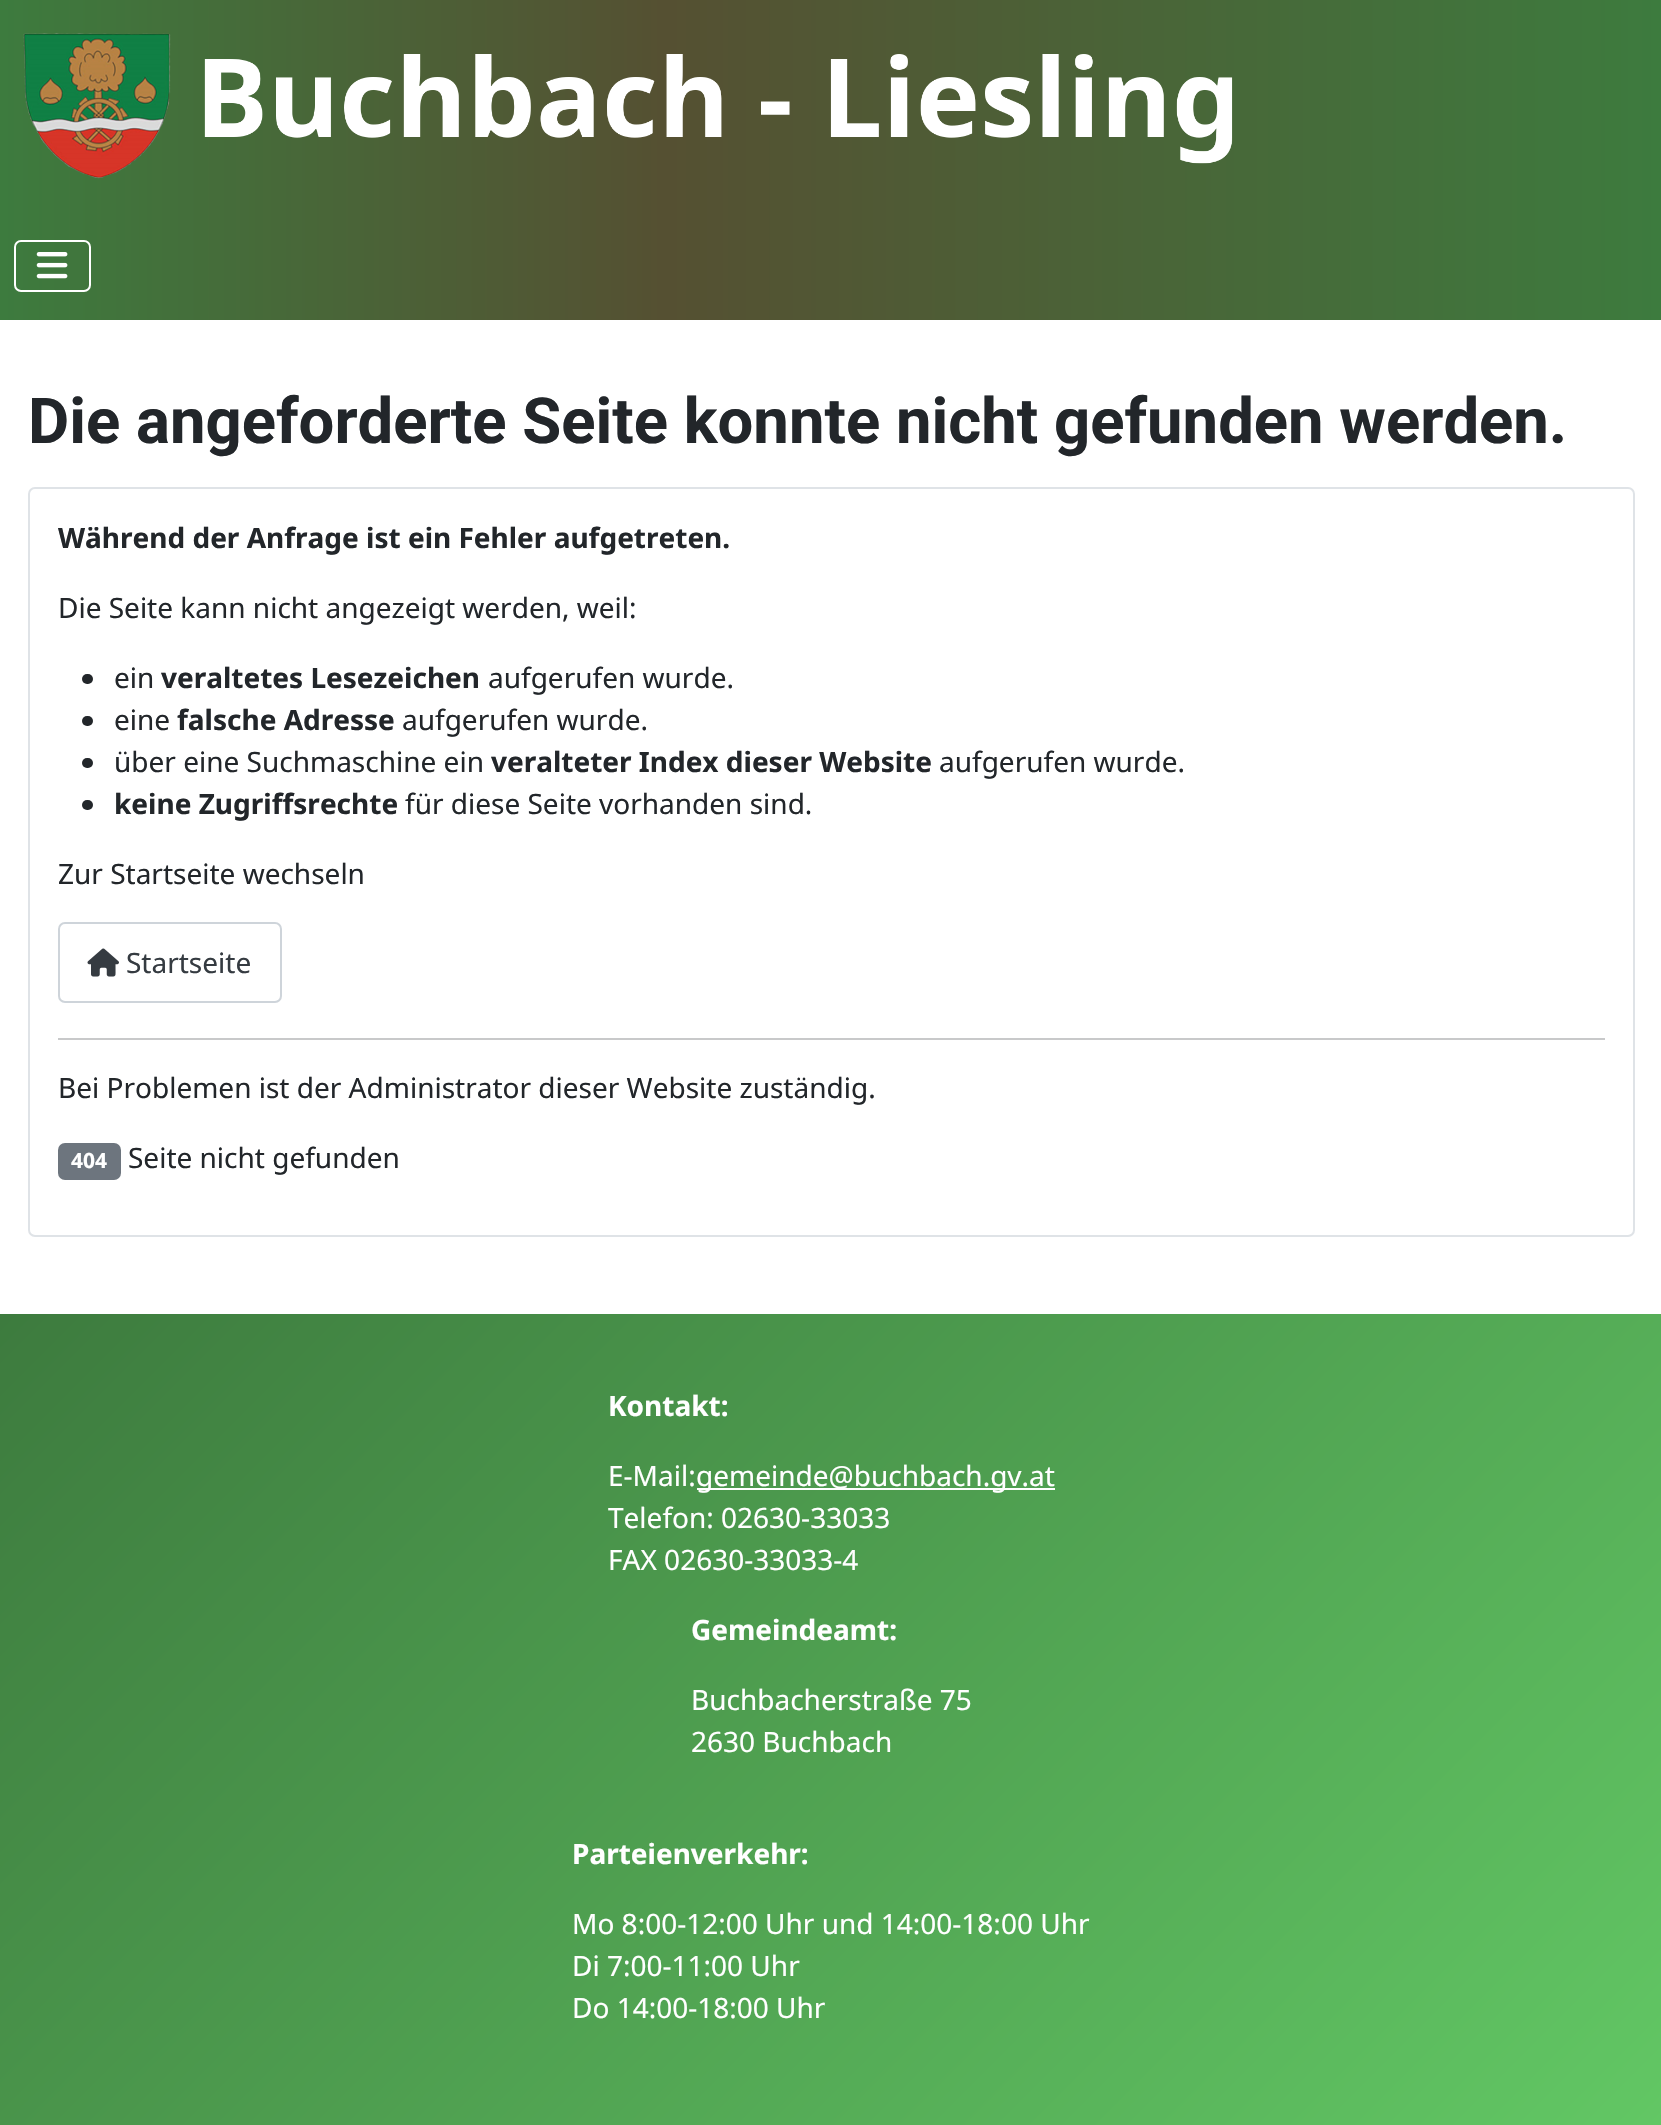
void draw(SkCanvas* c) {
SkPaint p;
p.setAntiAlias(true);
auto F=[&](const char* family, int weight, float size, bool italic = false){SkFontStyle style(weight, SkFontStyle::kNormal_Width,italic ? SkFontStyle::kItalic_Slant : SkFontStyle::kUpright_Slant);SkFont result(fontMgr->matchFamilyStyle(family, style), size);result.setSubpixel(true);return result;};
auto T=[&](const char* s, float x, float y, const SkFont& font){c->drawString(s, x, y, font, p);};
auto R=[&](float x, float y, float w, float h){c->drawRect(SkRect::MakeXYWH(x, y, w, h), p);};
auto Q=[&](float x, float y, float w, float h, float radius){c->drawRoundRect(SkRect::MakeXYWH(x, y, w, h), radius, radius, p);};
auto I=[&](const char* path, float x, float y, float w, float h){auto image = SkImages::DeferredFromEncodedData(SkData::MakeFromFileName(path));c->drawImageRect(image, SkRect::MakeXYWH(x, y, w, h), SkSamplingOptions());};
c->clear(0xffffffff);
{
const SkColor colors[] = {0xff3d7b3e,0xff555032,0xff3d7b3e};
const float stops[] = {0,.4,1};
const SkPoint ends[] = {{0,160}, {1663,160}};
p.setShader(SkGradientShader::MakeLinear(ends, colors, stops, 3, SkTileMode::kClamp));
p.setAlpha(255);
}
R(0,0,1661,320);
I("1.png",23,33,1210,146);
p.setStroke(true);
p.setStrokeWidth(2);
p.setShader(nullptr);
p.setColor(0xffffffff);
c->drawRoundRect(SkRect::MakeXYWH(15,241,75,50),6,6,p);
I("2.png",36,252,32,27);
auto f1 = F("Roboto",700,63.4);
p.setStroke(false);
p.setColor(0xff22262a);
T("Die angeforderte Seite konnte nicht gefunden werden.",28,443,f1);
p.setStroke(true);
p.setColor(0xffdfe3e7);
c->drawRoundRect(SkRect::MakeXYWH(29,488,1605,748),6,6,p);
auto f2 = F("Noto Sans",700,28);
p.setStroke(false);
p.setColor(0xff22262a);
T("Während der Anfrage ist ein Fehler aufgetreten.",58,548,f2);
auto f3 = F("Noto Sans",400,28);
T("Die Seite kann nicht angezeigt werden, weil:",58,618,f3);
Q(82,674,11,10,5);
T("ein",114,688,f3);
T("veraltetes Lesezeichen",161,688,f2);
T("aufgerufen wurde.",488,688,f3);
Q(82,716,11,10,5);
T("eine",114,730,f3);
T("falsche Adresse",177,730,f2);
T("aufgerufen wurde.",402,730,f3);
Q(82,758,11,10,5);
T("über eine Suchmaschine ein",114,772,f3);
T("veralteter Index dieser Website",491,772,f2);
T("aufgerufen wurde.",939,772,f3);
Q(82,800,11,10,5);
T("keine Zugriffsrechte",114,814,f2);
T("für diese Seite vorhanden sind.",405,814,f3);
T("Zur Startseite wechseln",58,884,f3);
p.setStroke(true);
p.setColor(0xffced4da);
c->drawRoundRect(SkRect::MakeXYWH(59,923,222,79),6,6,p);
I("3.png",87,948,32,29);
p.setStroke(false);
p.setColor(0xff353b41);
T("Startseite",126,973,f3);
p.setColor(0xffc8c9ca);
R(58,1038,1547,2);
p.setColor(0xff22262a);
T("Bei Problemen ist der Administrator dieser Website zuständig.",58,1098,f3);
p.setColor(0xff6d757e);
Q(58,1143,63,37,7);
auto f4 = F("Noto Sans",700,21);
p.setColor(0xffffffff);
T("404",71,1168,f4);
p.setColor(0xff22262a);
T("Seite nicht gefunden",128,1168,f3);
{
const SkColor colors[] = {0xff3d7b3e,0xff62c764};
const float stops[] = {0,1};
const SkPoint ends[] = {{213,1102}, {1450,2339}};
p.setShader(SkGradientShader::MakeLinear(ends, colors, stops, 2, SkTileMode::kClamp));
p.setAlpha(255);
}
R(0,1314,1661,811);
p.setShader(nullptr);
p.setColor(0xffffffff);
T("Kontakt:",608,1416,f2);
T("E-Mail:",608,1486,f3);
R(697,1488,358,2);
T("gemeinde@buchbach.gv.at",696,1486,f3);
T("Telefon: 02630-33033",608,1528,f3);
T("FAX 02630-33033-4",608,1570,f3);
T("Gemeindeamt:",691,1640,f2);
T("Buchbacherstraße 75",691,1710,f3);
T("2630 Buchbach",691,1752,f3);
T("Parteienverkehr:",572,1864,f2);
T("Mo 8:00-12:00 Uhr und 14:00-18:00 Uhr",572,1934,f3);
T("Di 7:00-11:00 Uhr",572,1976,f3);
T("Do 14:00-18:00 Uhr",572,2018,f3);
}
